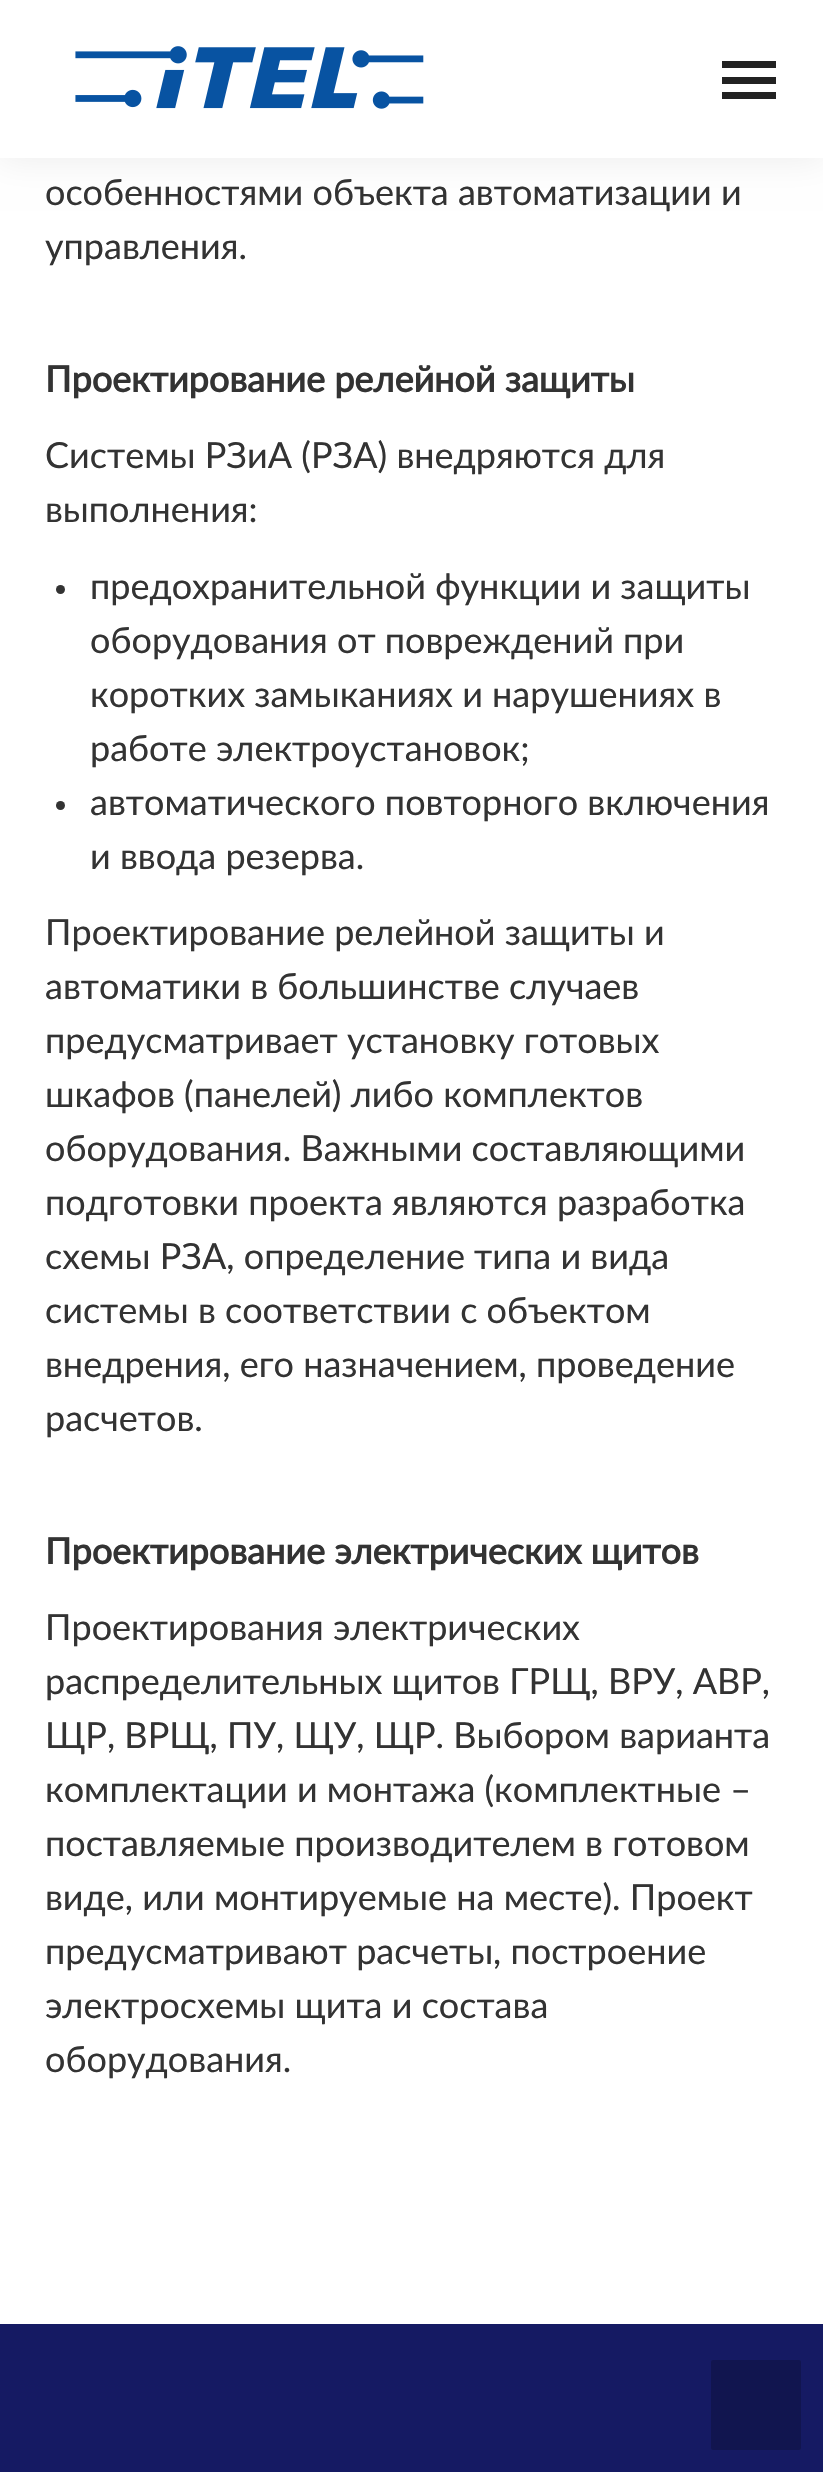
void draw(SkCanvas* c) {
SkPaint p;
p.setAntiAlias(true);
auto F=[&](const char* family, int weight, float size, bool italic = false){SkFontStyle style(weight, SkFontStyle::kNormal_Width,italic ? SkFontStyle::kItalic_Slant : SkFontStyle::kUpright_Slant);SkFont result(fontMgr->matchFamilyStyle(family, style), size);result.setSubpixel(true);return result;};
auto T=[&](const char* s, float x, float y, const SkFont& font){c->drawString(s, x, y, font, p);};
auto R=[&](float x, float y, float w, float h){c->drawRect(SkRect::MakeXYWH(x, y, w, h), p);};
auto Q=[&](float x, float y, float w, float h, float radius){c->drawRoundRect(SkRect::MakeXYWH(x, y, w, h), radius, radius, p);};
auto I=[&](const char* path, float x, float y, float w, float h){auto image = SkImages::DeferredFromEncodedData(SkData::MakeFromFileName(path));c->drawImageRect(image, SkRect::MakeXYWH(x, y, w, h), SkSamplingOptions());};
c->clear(0xffffffff);
p.setColor(0x12000000);
p.setMaskFilter(SkMaskFilter::MakeBlur(kNormal_SkBlurStyle, 17));
c->drawRect(SkRect::MakeXYWH(-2,-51,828,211),p);
p.setMaskFilter(nullptr);
p.setColor(0xffffffff);
R(0,0,823,158);
I("1.png",75,46,349,63);
p.setColor(0xff222222);
R(722,61,54,7);
R(722,77,54,7);
R(722,92,54,7);
auto f1 = F("Lato",400,36);
p.setColor(0xff333333);
T("особенностями объекта автоматизации и",45,205,f1);
T("управления.",45,259,f1);
auto f2 = F("Lato",700,36);
T("Проектирование релейной защиты",45,392,f2);
T("Системы РЗиА (РЗА) внедряются для",45,468,f1);
T("выполнения:",45,522,f1);
c->drawCircle(60.5,589.5,4.5,p);
T("предохранительной функции и защиты",90,599,f1);
T("оборудования от повреждений при",90,653,f1);
T("коротких замыканиях и нарушениях в",90,707,f1);
T("работе электроустановок;",90,761,f1);
c->drawCircle(60.5,805.5,4.5,p);
T("автоматического повторного включения",90,815,f1);
T("и ввода резерва.",90,869,f1);
T("Проектирование релейной защиты и",45,945,f1);
T("автоматики в большинстве случаев",45,999,f1);
T("предусматривает установку готовых",45,1053,f1);
T("шкафов (панелей) либо комплектов",45,1107,f1);
T("оборудования. Важными составляющими",45,1161,f1);
T("подготовки проекта являются разработка",45,1215,f1);
T("схемы РЗА, определение типа и вида",45,1269,f1);
T("системы в соответствии с объектом",45,1323,f1);
T("внедрения, его назначением, проведение",45,1377,f1);
T("расчетов.",45,1431,f1);
T("Проектирование электрических щитов",45,1564,f2);
T("Проектирования электрических",45,1640,f1);
T("распределительных щитов ГРЩ, ВРУ, АВР,",45,1694,f1);
T("ЩР, ВРЩ, ПУ, ЩУ, ЩР. Выбором варианта",45,1748,f1);
T("комплектации и монтажа (комплектные –",45,1802,f1);
T("поставляемые производителем в готовом",45,1856,f1);
T("виде, или монтируемые на месте). Проект",45,1910,f1);
T("предусматривают расчеты, построение",45,1964,f1);
T("электросхемы щита и состава",45,2018,f1);
T("оборудования.",45,2072,f1);
p.setColor(0xff151a63);
R(0,2324,823,148);
p.setColor(0xff11154f);
Q(711,2360,90,90,2);
}
